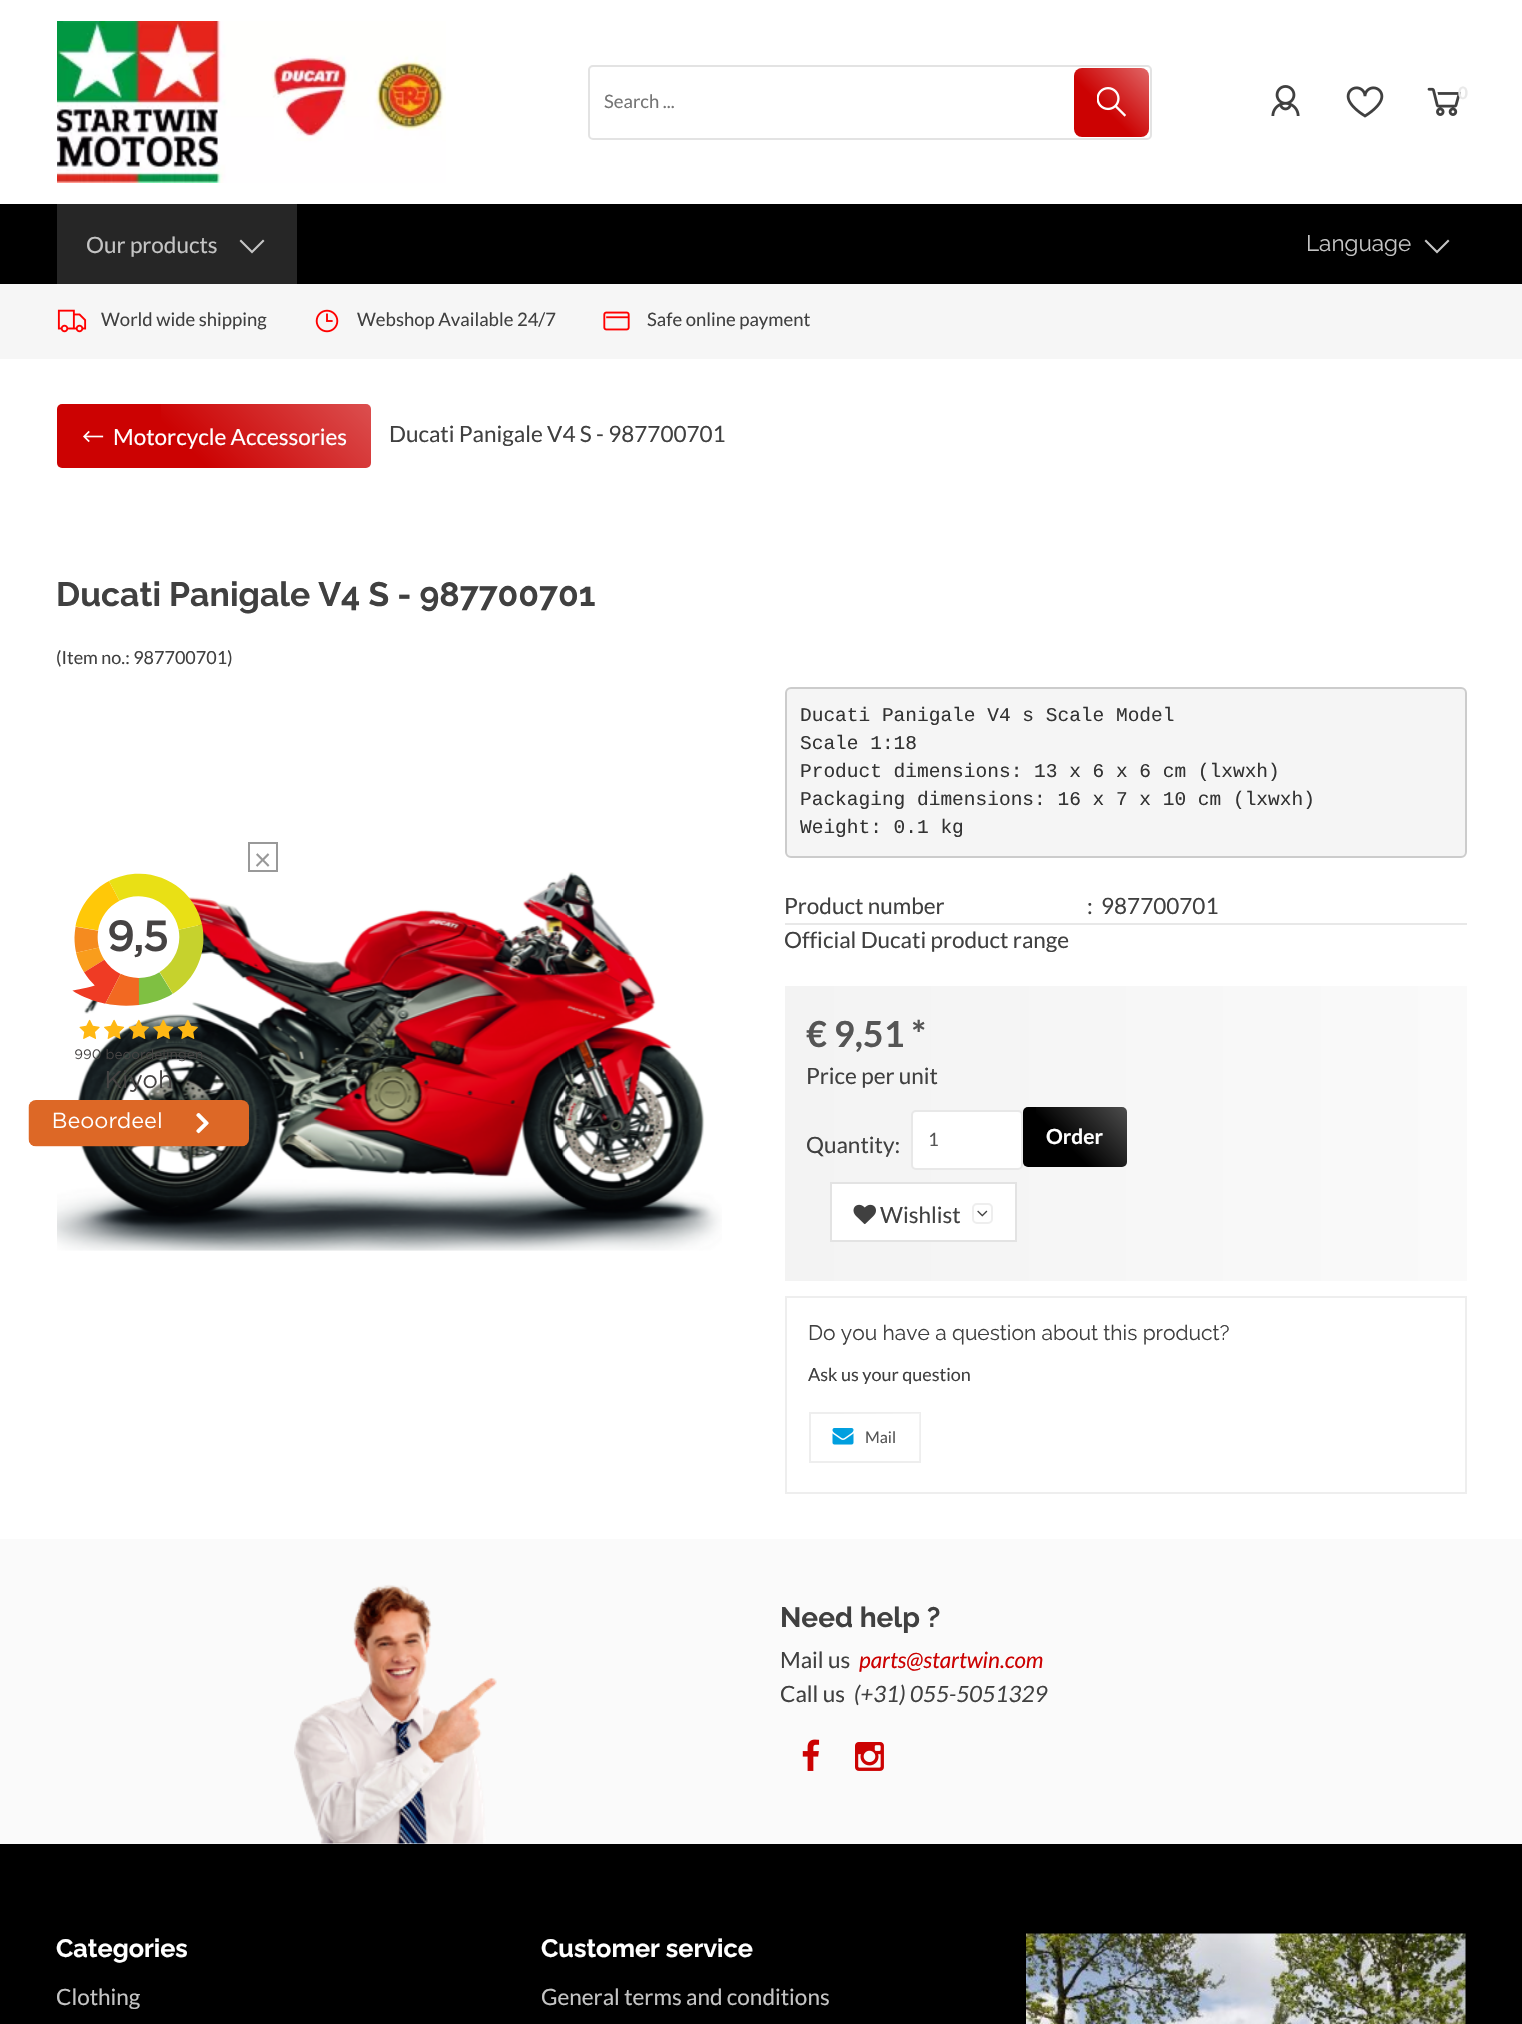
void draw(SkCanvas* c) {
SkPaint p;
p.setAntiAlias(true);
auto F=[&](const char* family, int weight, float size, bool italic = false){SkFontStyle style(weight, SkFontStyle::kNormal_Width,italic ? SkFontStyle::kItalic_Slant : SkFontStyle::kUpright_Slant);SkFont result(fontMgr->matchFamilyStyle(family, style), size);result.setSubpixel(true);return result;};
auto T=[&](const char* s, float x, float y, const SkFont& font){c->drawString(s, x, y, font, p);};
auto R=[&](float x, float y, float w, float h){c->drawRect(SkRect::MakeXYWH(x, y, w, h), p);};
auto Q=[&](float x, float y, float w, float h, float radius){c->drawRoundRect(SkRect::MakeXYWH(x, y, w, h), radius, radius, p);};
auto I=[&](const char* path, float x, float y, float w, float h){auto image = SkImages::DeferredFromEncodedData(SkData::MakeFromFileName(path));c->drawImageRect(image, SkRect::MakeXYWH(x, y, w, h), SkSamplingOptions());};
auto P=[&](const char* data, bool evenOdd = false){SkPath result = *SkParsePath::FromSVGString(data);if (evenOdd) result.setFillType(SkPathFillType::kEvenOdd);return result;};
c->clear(0xffffffff);
I("1.png",57,21,389,162);
p.setStroke(true);
p.setStrokeWidth(2);
p.setColor(0xffe3e3e3);
c->drawRoundRect(SkRect::MakeXYWH(589,66,562,73),4,4,p);
auto f1 = F("Lato",400,18.5);
p.setStroke(false);
p.setColor(0xff757575);
T("Search ...",604,108,f1);
p.setColor(0xffcc0202);
Q(1074,68,75,69,8);
{
const SkColor colors[] = {0x66ffffff,0x00ffffff};
const float stops[] = {0,.6};
const SkPoint ends[] = {{1148,66}, {1076,138}};
p.setShader(SkGradientShader::MakeLinear(ends, colors, stops, 2, SkTileMode::kClamp));
p.setAlpha(255);
}
R(1074,68,75,69);
I("2.png",1097,87,29,30);
I("3.png",1271,85,29,31);
I("4.png",1346,86,38,32);
I("5.png",1427,87,34,29);
auto f2 = F("Lato",700,17);
p.setShader(nullptr);
p.setColor(0xffe9e9e9);
T("0",1458,99,f2);
p.setColor(0xff000000);
R(0,204,1522,80);
p.setColor(0xff262626);
R(57,204,240,80);
auto f3 = F("Lato",400,22.5);
p.setColor(0xffc4c4c4);
T("Our products",86,253,f3);
c->drawPath(P("M241 239.5l-1.5 1.5l12.5 12.5l12.5-12.5l-1.5-1.5l-11 11z"),p);
auto f4 = F("Raleway",400,22.5);
T("Language",1306,251,f4);
c->drawPath(P("M1426 239.5l-1.5 1.5l12.5 12.5l12.5-12.5l-1.5-1.5l-11 11z"),p);
p.setColor(0xfff6f6f6);
R(0,284,1522,75);
I("6.png",57,309,30,24);
p.setColor(0xff404040);
T("World wide shipping",101,326,f1);
I("7.png",315,309,24,24);
T("Webshop Available 24/7",357,326,f1);
I("8.png",603,311,27,20);
T("Safe online payment",647,326,f1);
p.setColor(0xffcc0202);
Q(57,404,314,64,5);
{
const SkColor colors[] = {0x4dffffff,0x00ffffff};
const float stops[] = {0,.6};
const SkPoint ends[] = {{308,341}, {119,530}};
p.setShader(SkGradientShader::MakeLinear(ends, colors, stops, 2, SkTileMode::kClamp));
p.setAlpha(255);
}
R(161,404,210,64);
I("9.png",83,430,21,13);
p.setShader(nullptr);
p.setColor(0xffffffff);
T("Motorcycle Accessories",113,445,f3);
p.setColor(0xff404040);
T("Ducati Panigale V4 S - 987700701",389,442,f3);
auto f5 = F("Raleway",700,33.75);
T("Ducati Panigale V4 S - 987700701",56,606,f5);
auto f6 = F("Lato",400,18);
T("(Item no.: 987700701)",56,664,f6);
I("10.png",57,872,665,379);
p.setColor(0xfff5f5f5);
c->drawRoundRect(SkRect::MakeXYWH(786,688,680,169),5,5,p);
p.setStroke(true);
p.setColor(0xffcccccc);
c->drawRoundRect(SkRect::MakeXYWH(786,688,680,169),5,5,p);
auto f7 = F("Liberation Mono",400,19.5);
p.setStroke(false);
p.setColor(0xff333333);
T("Ducati Panigale V4 s Scale Model",800,721,f7);
T("Scale 1:18",800,749,f7);
T("Product dimensions: 13 x 6 x 6 cm (lxwxh)",800,777,f7);
T("Packaging dimensions: 16 x 7 x 10 cm (lxwxh)",800,805,f7);
T("Weight: 0.1 kg",800,833,f7);
p.setColor(0xff404040);
T("Product number",784,914,f3);
T(":",1087,914,f3);
T("987700701",1101,914,f3);
p.setColor(0xffe8e8e8);
R(785,923,682,2);
p.setColor(0xff404040);
T("Official Ducati product range",784,948,f3);
{
const SkColor colors[] = {0xfff3f3f3,0xfffafafa};
const float stops[] = {0,1};
const SkPoint ends[] = {{785,1133}, {1467,1133}};
p.setShader(SkGradientShader::MakeLinear(ends, colors, stops, 2, SkTileMode::kClamp));
p.setAlpha(255);
}
R(785,986,682,295);
auto f8 = F("Lato",700,36);
p.setShader(nullptr);
p.setColor(0xff555555);
T("€ 9,51 *",806,1047,f8);
p.setColor(0xff404040);
T("Price per unit",806,1084,f3);
T("Quantity:",806,1153,f3);
p.setColor(0xffffffff);
c->drawRoundRect(SkRect::MakeXYWH(912,1111,110,58),4,4,p);
p.setStroke(true);
p.setColor(0xffe8e8e8);
c->drawRoundRect(SkRect::MakeXYWH(912,1111,110,58),4,4,p);
p.setStroke(false);
p.setColor(0xff555555);
T("1",928,1146,f1);
p.setColor(0xff000000);
Q(1023,1107,104,60,5);
{
const SkColor colors[] = {0x4dffffff,0x00ffffff};
const float stops[] = {0,.6};
const SkPoint ends[] = {{1116,1096}, {1034,1178}};
p.setShader(SkGradientShader::MakeLinear(ends, colors, stops, 2, SkTileMode::kClamp));
p.setAlpha(255);
}
R(1036,1107,91,60);
auto f9 = F("Lato",700,21);
p.setShader(nullptr);
p.setColor(0xffffffff);
T("Order",1046,1144,f9);
c->drawRect(SkRect::MakeXYWH(831,1183,185,58),p);
p.setStroke(true);
p.setColor(0xffe3e3e3);
c->drawRect(SkRect::MakeXYWH(831,1183,185,58),p);
I("11.png",853,1204,23,21);
p.setStroke(false);
p.setColor(0xff404040);
T("Wishlist",880,1223,f3);
p.setStroke(true);
p.setColor(0xffeeeeee);
c->drawRoundRect(SkRect::MakeXYWH(973,1204,19,19),4,4,p);
I("12.png",977,1210,11,7);
c->drawRect(SkRect::MakeXYWH(786,1297,680,196),p);
auto f10 = F("Raleway",400,21);
p.setStroke(false);
p.setColor(0xff404040);
T("Do you have a question about this product?",808,1340,f10);
T("Ask us your question",808,1381,f6);
p.setStroke(true);
p.setColor(0xffeeeeee);
c->drawRect(SkRect::MakeXYWH(810,1413,110,49),p);
I("13.png",832,1428,22,17);
p.setStroke(false);
{
const SkColor colors[] = {0x4dffffff,0x00ffffff};
const float stops[] = {0,.6};
const SkPoint ends[] = {{904,1398}, {825,1476}};
p.setShader(SkGradientShader::MakeLinear(ends, colors, stops, 2, SkTileMode::kClamp));
p.setAlpha(255);
}
R(844,1413,76,48);
auto f11 = F("Lato",400,16);
p.setShader(nullptr);
p.setColor(0xff555555);
T("Mail",865,1443,f11);
p.setColor(0xfffafafa);
R(0,1539,1522,305);
I("14.png",294,1584,203,260);
auto f12 = F("Raleway",700,28);
p.setColor(0xff404040);
T("Need help ?",780,1627,f12);
T("Mail us",780,1668,f3);
auto f13 = F("Lato",400,22.5,true);
p.setColor(0xffcc0202);
T("parts@startwin.com",859,1668,f13);
p.setColor(0xff404040);
T("Call us",780,1702,f3);
T("(+31) 055-5051329",854,1702,f13);
I("15.png",802,1739,18,32);
I("16.png",855,1742,29,29);
p.setStroke(true);
p.setColor(0xff999999);
c->drawRect(SkRect::MakeXYWH(249,843,28,28),p);
auto f14 = F("Lato",400,30);
p.setStroke(false);
T("×",254,870,f14);
I("17.png",28,873,221,274);
p.setColor(0xff000000);
R(0,1844,1522,180);
auto f15 = F("Raleway",700,25.25);
p.setColor(0xffffffff);
T("Categories",56,1957,f15);
p.setColor(0xffc4c4c4);
T("Clothing",56,2005,f3);
p.setColor(0xffffffff);
T("Customer service",541,1957,f15);
p.setColor(0xffc4c4c4);
T("General terms and conditions",541,2005,f3);
I("18.png",1026,1933,440,91);
}
